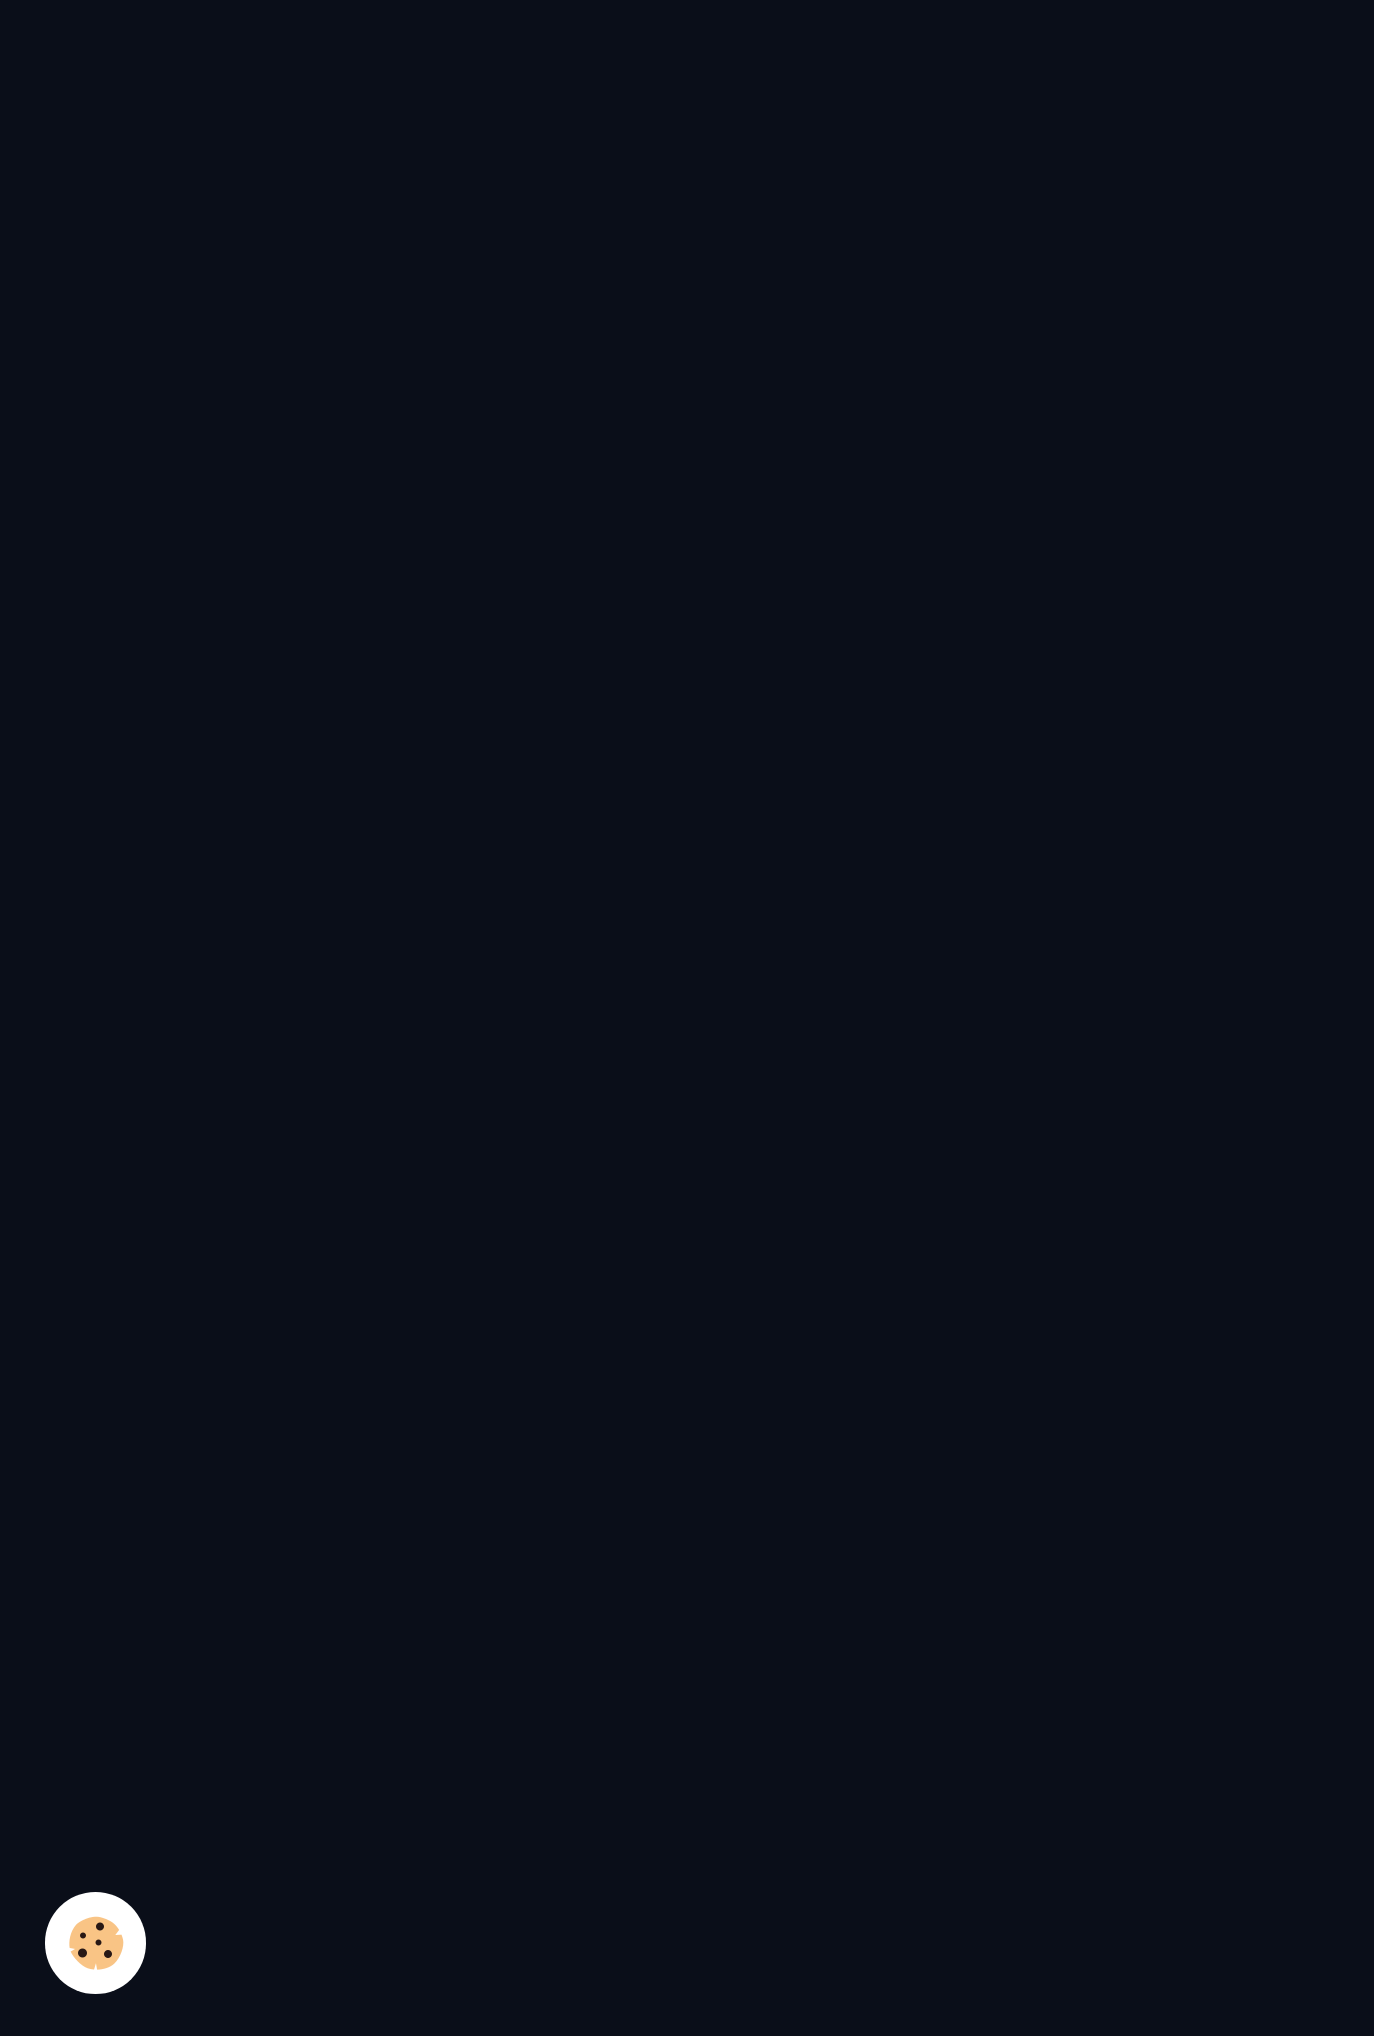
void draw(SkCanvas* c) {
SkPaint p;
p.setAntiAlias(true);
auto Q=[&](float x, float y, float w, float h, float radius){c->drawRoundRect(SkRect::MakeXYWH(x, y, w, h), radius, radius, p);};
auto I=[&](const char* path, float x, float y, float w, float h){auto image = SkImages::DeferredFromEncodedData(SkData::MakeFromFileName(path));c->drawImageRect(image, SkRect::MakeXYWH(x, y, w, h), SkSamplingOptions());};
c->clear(0xff0a0e19);
p.setColor(0xffffffff);
Q(45,1892,101,102,50.5);
I("1.png",69,1916,55,54);
}
